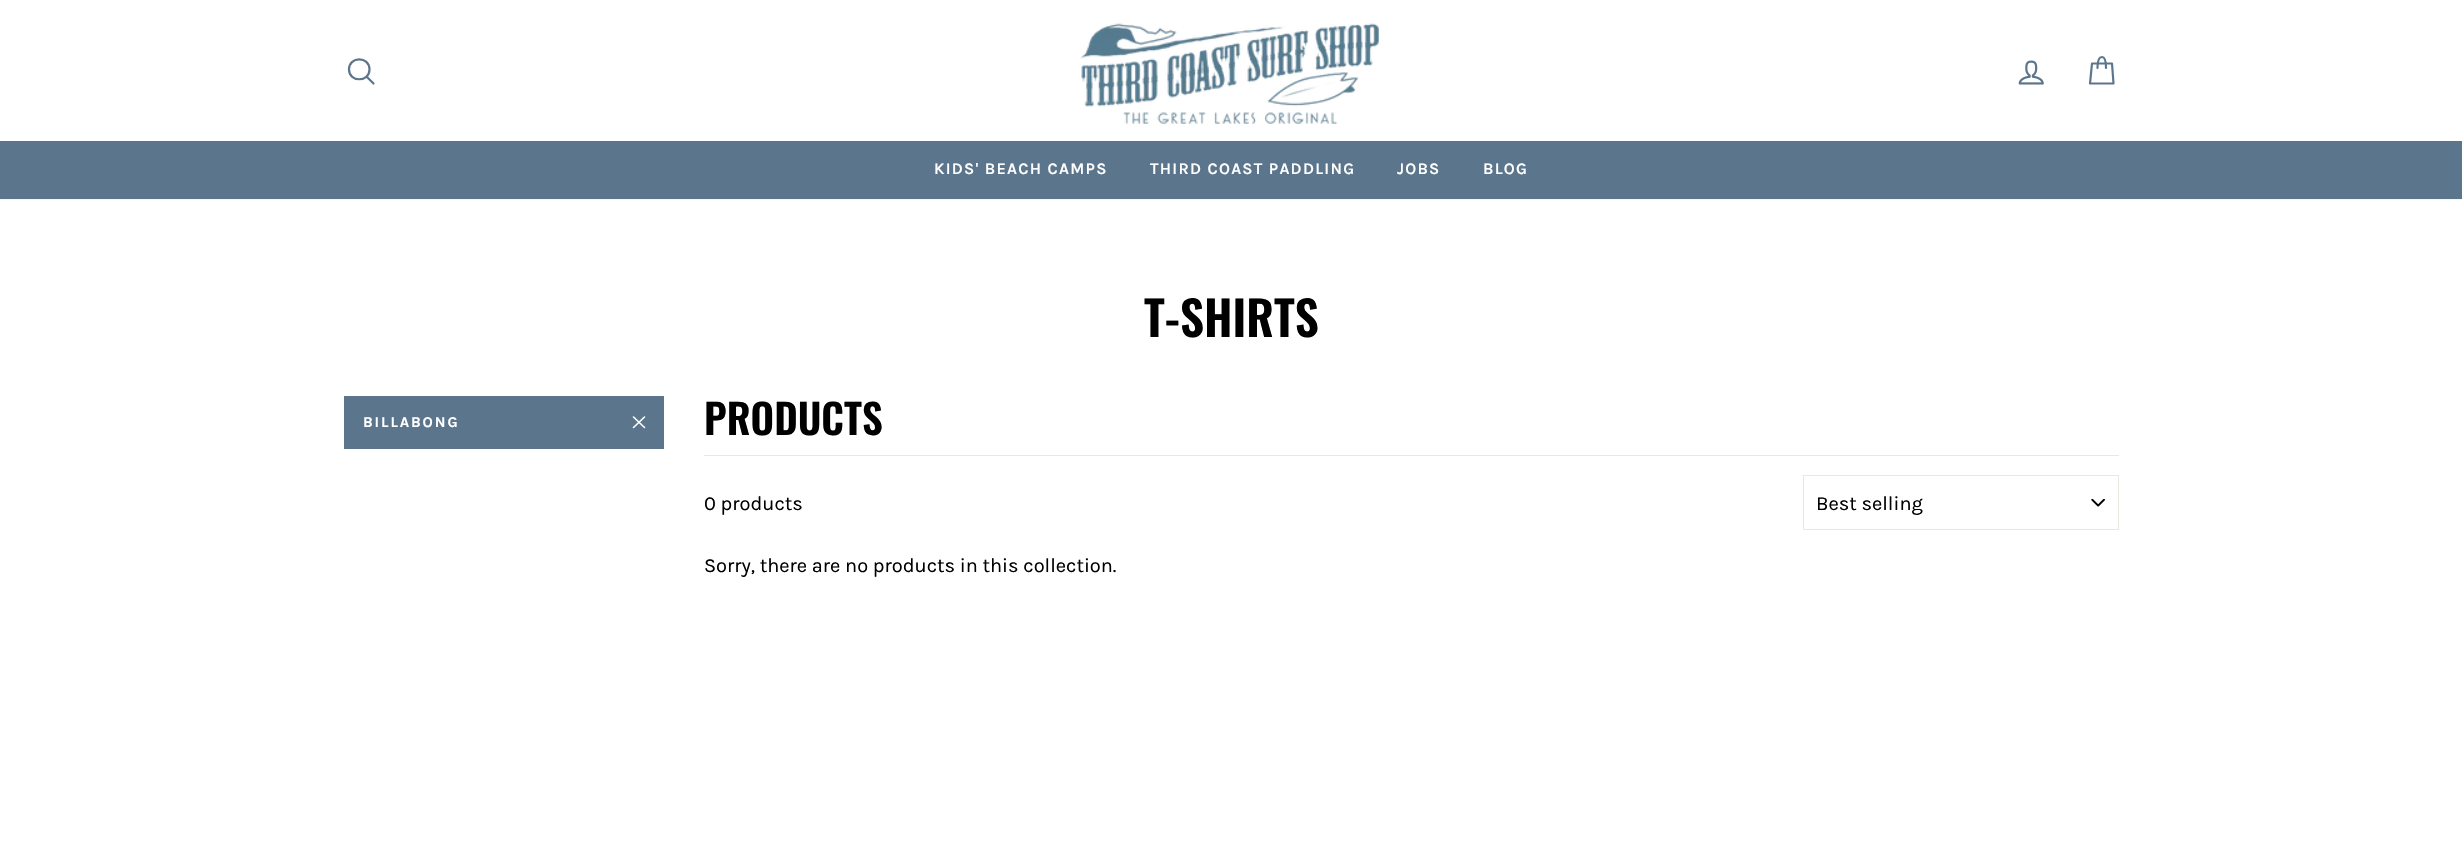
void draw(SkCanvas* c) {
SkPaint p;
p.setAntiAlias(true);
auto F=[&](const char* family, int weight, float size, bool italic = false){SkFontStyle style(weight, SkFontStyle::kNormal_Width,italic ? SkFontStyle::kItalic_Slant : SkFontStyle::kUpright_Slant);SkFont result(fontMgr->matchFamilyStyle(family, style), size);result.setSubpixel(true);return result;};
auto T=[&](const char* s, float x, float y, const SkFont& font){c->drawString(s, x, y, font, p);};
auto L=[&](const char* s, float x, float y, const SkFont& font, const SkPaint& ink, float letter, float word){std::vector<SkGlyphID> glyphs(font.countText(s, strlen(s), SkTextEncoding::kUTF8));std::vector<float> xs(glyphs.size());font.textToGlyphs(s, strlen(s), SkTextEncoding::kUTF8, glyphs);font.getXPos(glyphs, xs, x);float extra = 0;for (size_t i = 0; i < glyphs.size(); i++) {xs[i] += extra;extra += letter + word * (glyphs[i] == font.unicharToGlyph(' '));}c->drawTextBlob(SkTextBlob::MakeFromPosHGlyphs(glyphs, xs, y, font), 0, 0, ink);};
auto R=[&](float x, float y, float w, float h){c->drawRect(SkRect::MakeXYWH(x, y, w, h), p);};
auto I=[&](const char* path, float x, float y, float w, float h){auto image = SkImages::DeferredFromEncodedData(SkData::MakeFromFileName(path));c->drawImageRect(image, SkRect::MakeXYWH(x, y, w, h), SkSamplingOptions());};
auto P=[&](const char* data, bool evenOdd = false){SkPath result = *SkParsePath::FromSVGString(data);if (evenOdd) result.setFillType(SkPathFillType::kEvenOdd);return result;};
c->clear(0xffffffff);
p.setColor(0x33000000);
p.setMaskFilter(SkMaskFilter::MakeBlur(kNormal_SkBlurStyle, .5));
c->drawRect(SkRect::MakeXYWH(0,0,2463,199),p);
p.setMaskFilter(nullptr);
p.setColor(0xffffffff);
R(0,0,2462,141);
p.setStroke(true);
p.setStrokeWidth(2.2);
p.setStrokeCap(SkPaint::kRound_Cap);
p.setStrokeJoin(SkPaint::kRound_Join);
p.setColor(0xff5b768c);
c->drawPath(P("M369.5 69.5c0 13-20.5 13-20.5 0c0-13.5 20.5-13.5 20.5 0zm4 14l-7-7"),p);
I("1.png",1080,23,300,101);
I("2.png",2018,60,26,25);
c->drawPath(P("M2097.5 68c0-8.5 2-11 4.5-11c2 0 4 2.5 4 11m-14-4.5h20l1.5 20h-23.5z"),p);
p.setStroke(false);
R(0,141,2462,58);
auto f1 = F("Karla",600,16.25);
p.setColor(0xffffffff);
L("KIDS' BEACH CAMPS",934,174,f1,p,1.25,0);
L("THIRD COAST PADDLING",1150,174,f1,p,1.25,0);
L("JOBS",1397,174,f1,p,1.25,0);
L("BLOG",1483,174,f1,p,1.25,0);
auto f2 = F("Oswald",600,47.5);
p.setColor(0xff000000);
T("T-SHIRTS",1144,337,f2);
p.setColor(0xff5b768c);
R(344,396,320,53);
auto f3 = F("Karla",700,15);
p.setColor(0xffffffff);
L("BILLABONG",363,427,f3,p,1.9,0);
p.setStroke(true);
p.setStrokeWidth(1.6);
c->drawPath(P("M633.5 417l11 10.5m0-10.5l-11 10.5"),p);
auto f4 = F("Oswald",600,41);
p.setStroke(false);
p.setColor(0xff000000);
T("PRODUCTS",704,435,f4);
p.setColor(0xffe8e8e1);
R(704,455,1415,1);
auto f5 = F("Karla",400,20);
p.setColor(0xff000000);
T("0 products",704,510,f5);
I("3.png",2091,499,14,8);
p.setStroke(true);
p.setStrokeWidth(1);
p.setStrokeCap(SkPaint::kButt_Cap);
p.setStrokeJoin(SkPaint::kMiter_Join);
p.setColor(0xffe8e8e1);
c->drawRect(SkRect::MakeXYWH(1803.5,475.5,315,54),p);
p.setStroke(false);
p.setColor(0xff000000);
T("Best selling",1816,510,f5);
T("Sorry, there are no products in this collection.",704,572,f5);
}
